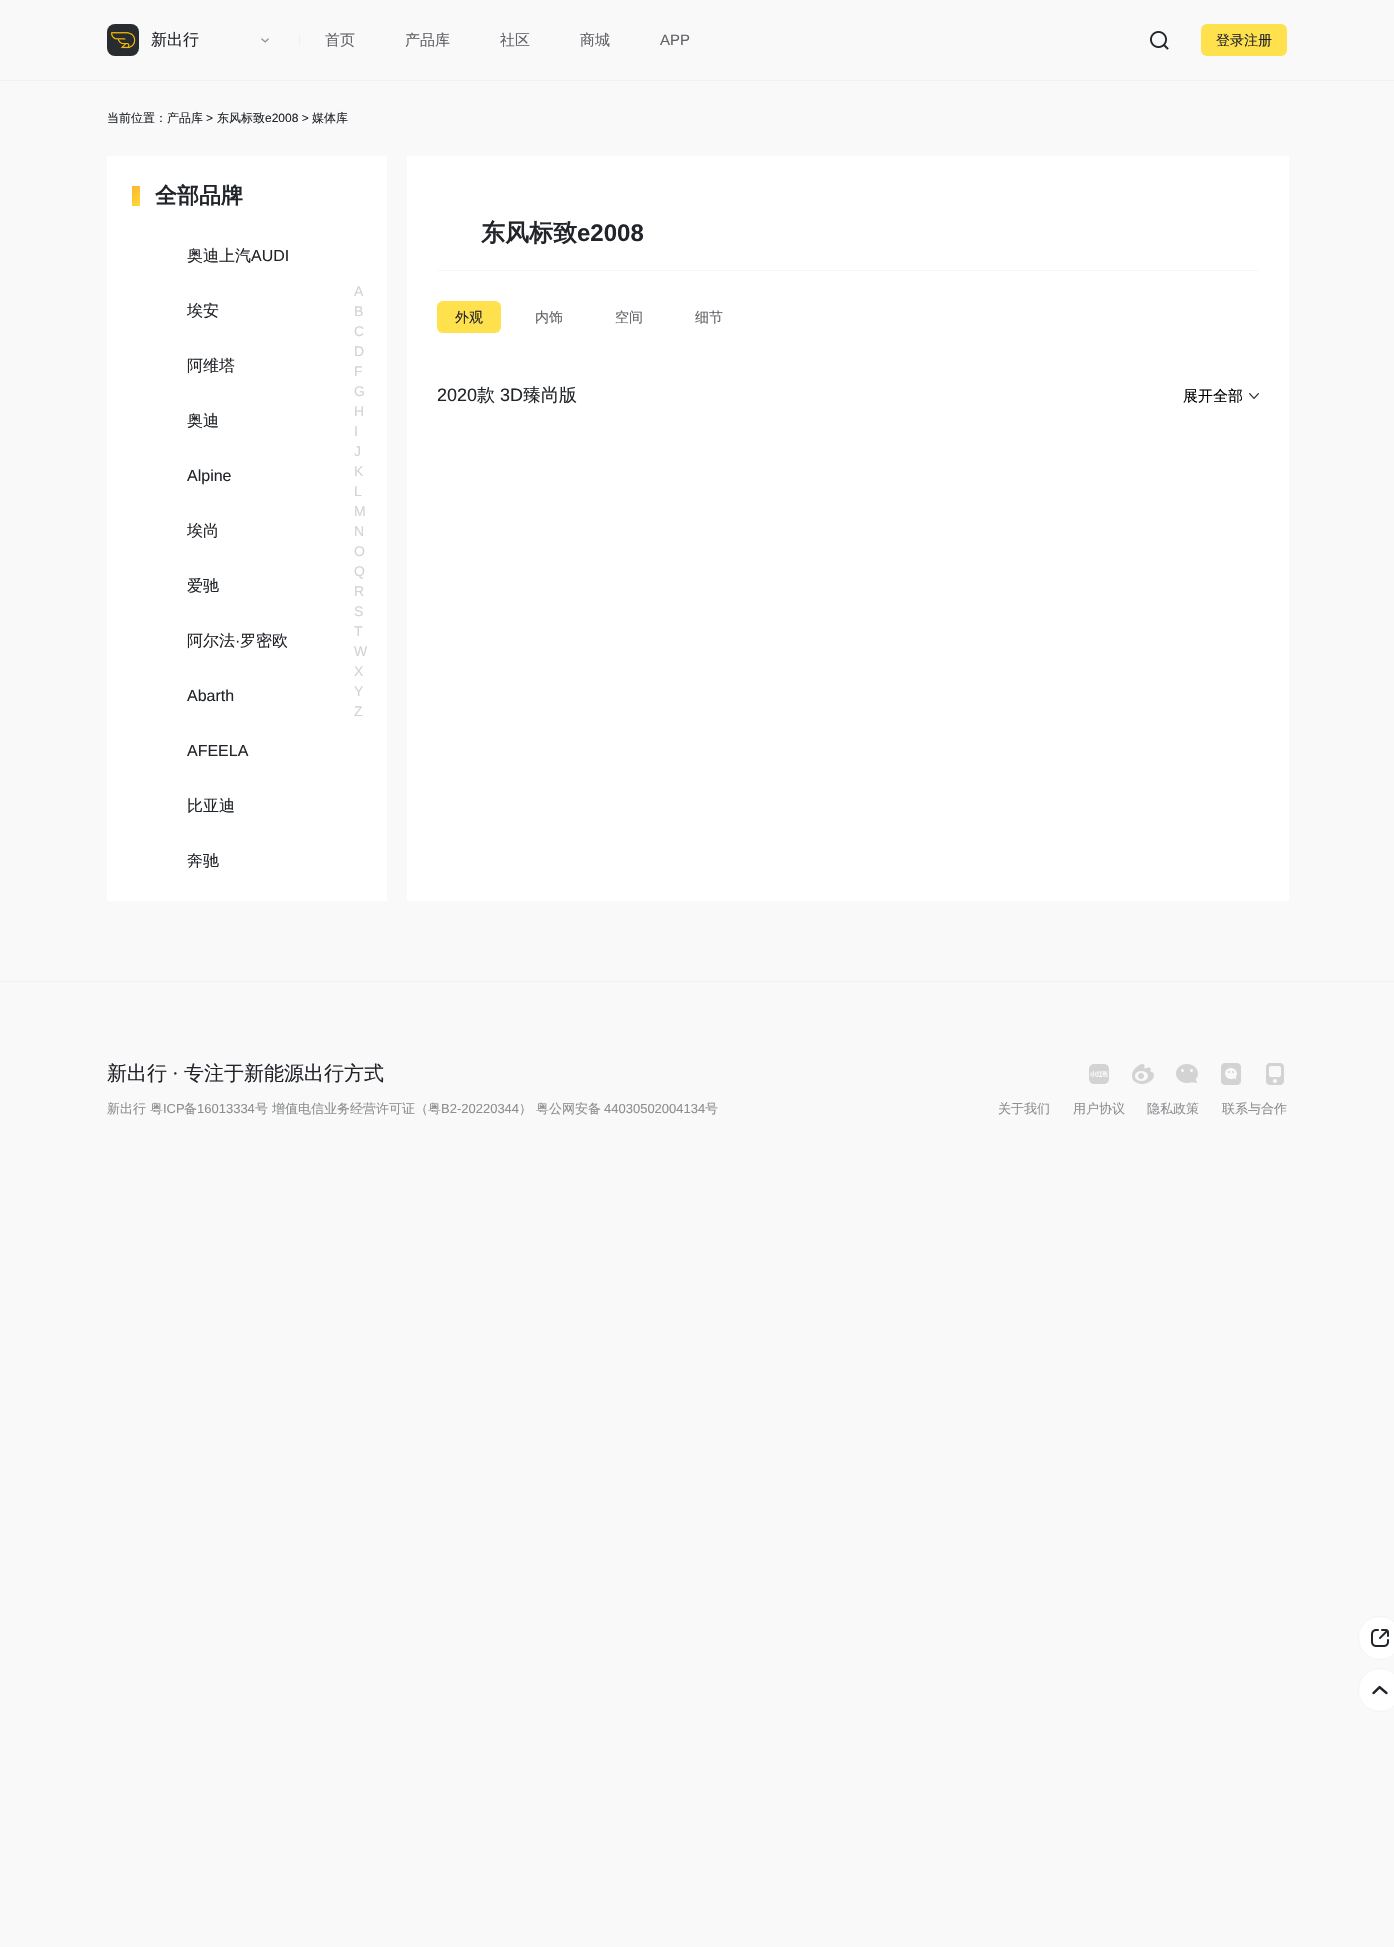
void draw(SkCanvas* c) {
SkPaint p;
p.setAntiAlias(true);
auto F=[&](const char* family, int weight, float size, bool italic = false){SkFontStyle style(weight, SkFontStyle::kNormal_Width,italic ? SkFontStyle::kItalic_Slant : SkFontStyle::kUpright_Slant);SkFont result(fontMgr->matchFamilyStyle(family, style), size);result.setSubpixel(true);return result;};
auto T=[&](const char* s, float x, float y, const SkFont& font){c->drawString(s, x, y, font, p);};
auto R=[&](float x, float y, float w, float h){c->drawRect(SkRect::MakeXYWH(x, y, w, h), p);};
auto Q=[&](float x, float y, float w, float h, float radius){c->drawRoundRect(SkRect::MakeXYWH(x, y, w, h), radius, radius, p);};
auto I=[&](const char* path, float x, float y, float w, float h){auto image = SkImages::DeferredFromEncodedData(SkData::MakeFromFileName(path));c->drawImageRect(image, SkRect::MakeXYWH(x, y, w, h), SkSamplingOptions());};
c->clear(0xfff9f9fa);
p.setColor(0xfff2f2f3);
R(0,80,1394,1);
I("1.png",107,24,32,32);
auto f1 = F("WenQuanYi Zen Hei",500,16);
p.setColor(0xff212429);
T("新出行",151,45,f1);
I("2.png",261,38,8,5);
p.setColor(0xfff0f0f0);
R(299,35,1,10);
auto f2 = F("WenQuanYi Zen Hei",500,15);
p.setColor(0xff616367);
T("首页",325,45,f2);
T("产品库",405,45,f2);
T("社区",500,45,f2);
T("商城",580,45,f2);
auto f3 = F("Liberation Sans",400,15);
T("APP",660,45,f3);
I("3.png",1150,31,19,19);
p.setColor(0xffffe14d);
Q(1201,24,86,32,6);
auto f4 = F("WenQuanYi Zen Hei",500,14);
p.setColor(0xff212429);
T("登录注册",1216,45,f4);
auto f5 = F("WenQuanYi Zen Hei",500,12);
T("当前位置：产品库",107,122,f5);
auto f6 = F("Liberation Sans",400,12);
T(">",206,122,f6);
T("东风标致",217,122,f5);
T("e2008 >",265,122,f6);
T("媒体库",312,122,f5);
p.setColor(0xffffffff);
R(107,156,280,745);
{
const SkColor colors[] = {0xfffeb333,0xfffedc33};
const float stops[] = {0,1};
const SkPoint ends[] = {{129,189}, {143,203}};
p.setShader(SkGradientShader::MakeLinear(ends, colors, stops, 2, SkTileMode::kClamp));
p.setAlpha(255);
}
R(132,186,8,20);
auto f7 = F("WenQuanYi Zen Hei",700,22);
p.setShader(nullptr);
p.setColor(0xff212429);
T("全部品牌",155,203,f7);
T("奥迪上汽",187,261,f1);
auto f8 = F("Liberation Sans",400,16);
T("AUDI",251,261,f8);
T("埃安",187,316,f1);
T("阿维塔",187,371,f1);
T("奥迪",187,426,f1);
T("Alpine",187,481,f8);
T("埃尚",187,536,f1);
T("爱驰",187,591,f1);
T("阿尔法",187,646,f1);
T("·",235,646,f8);
T("罗密欧",240,646,f1);
T("Abarth",187,701,f8);
T("AFEELA",187,756,f8);
T("比亚迪",187,811,f1);
T("奔驰",187,866,f1);
auto f9 = F("Liberation Sans",400,14);
p.setColor(0xffd3d3d4);
T("A",354,296,f9);
T("B",354,316,f9);
T("C",354,336,f9);
T("D",354,356,f9);
T("F",354,376,f9);
T("G",354,396,f9);
T("H",354,416,f9);
T("I",354,436,f9);
T("J",354,456,f9);
T("K",354,476,f9);
T("L",354,496,f9);
T("M",354,516,f9);
T("N",354,536,f9);
T("O",354,556,f9);
T("Q",354,576,f9);
T("R",354,596,f9);
T("S",354,616,f9);
T("T",354,636,f9);
T("W",354,656,f9);
T("X",354,676,f9);
T("Y",354,696,f9);
T("Z",354,716,f9);
p.setColor(0xffffffff);
R(407,156,882,745);
p.setColor(0xfff6f6f7);
R(437,270,822,1);
auto f10 = F("WenQuanYi Zen Hei",700,24);
p.setColor(0xff212429);
T("东风标致",481,241,f10);
auto f11 = F("Liberation Sans",700,24);
T("e2008",577,241,f11);
p.setColor(0xffffe14d);
Q(437,301,64,32,6);
p.setColor(0xff212429);
T("外观",455,322,f4);
p.setColor(0xff616367);
T("内饰",535,322,f4);
T("空间",615,322,f4);
T("细节",695,322,f4);
auto f12 = F("Liberation Sans",400,18);
p.setColor(0xff212429);
T("2020",437,401,f12);
auto f13 = F("WenQuanYi Zen Hei",500,18);
T("款",477,401,f13);
T("3D",500,401,f12);
T("臻尚版",523,401,f13);
p.setColor(0xff000000);
T("展开全部",1183,401,f2);
I("4.png",1249,393,10,6);
p.setColor(0xfff2f2f3);
R(0,981,1394,1);
auto f14 = F("WenQuanYi Zen Hei",500,20);
p.setColor(0xff212429);
T("新出行",107,1080,f14);
auto f15 = F("Liberation Serif",400,20);
T("·",172,1080,f15);
T("专注于新能源出行方式",184,1080,f14);
I("5.png",1089,1064,20,20);
I("6.png",1132,1064,22,20);
I("7.png",1176,1064,22,19);
I("8.png",1221,1063,20,22);
I("9.png",1266,1063,18,22);
auto f16 = F("WenQuanYi Zen Hei",500,13);
p.setColor(0xff8c8e90);
T("新出行 粤",107,1113,f16);
auto f17 = F("Liberation Sans",400,13);
T("ICP",163,1113,f17);
T("备",184,1113,f16);
T("16013334",197,1113,f17);
T("号 增值电信业务经营许可证（粤",255,1113,f16);
T("B2-20220344",441,1113,f17);
T("） 粤公网安备",519,1113,f16);
T("44030502004134",604,1113,f17);
T("号",705,1113,f16);
T("关于我们",998,1113,f16);
T("用户协议",1073,1113,f16);
T("隐私政策",1147,1113,f16);
T("联系与合作",1222,1113,f16);
p.setColor(0xffffffff);
c->drawCircle(1380,1638,22,p);
I("10.png",1371,1629,18,18);
p.setStroke(true);
p.setStrokeWidth(1);
p.setColor(0xfff3f3f3);
c->drawCircle(1380,1638,21.5,p);
p.setStroke(false);
p.setColor(0xffffffff);
c->drawCircle(1380,1690,22,p);
I("11.png",1372,1685,16,10);
p.setStroke(true);
p.setColor(0xfff3f3f3);
c->drawCircle(1380,1690,21.5,p);
}
